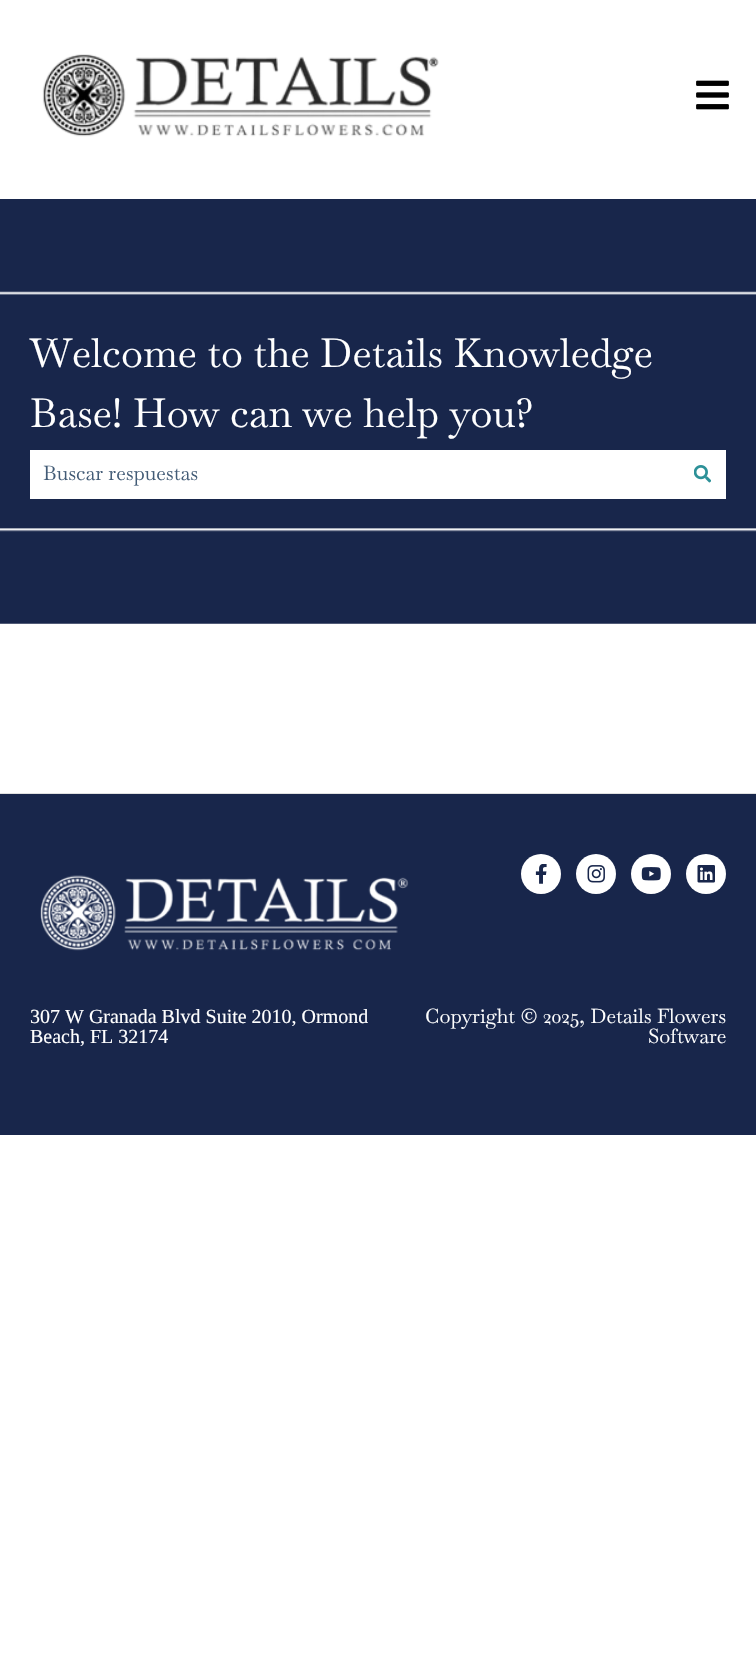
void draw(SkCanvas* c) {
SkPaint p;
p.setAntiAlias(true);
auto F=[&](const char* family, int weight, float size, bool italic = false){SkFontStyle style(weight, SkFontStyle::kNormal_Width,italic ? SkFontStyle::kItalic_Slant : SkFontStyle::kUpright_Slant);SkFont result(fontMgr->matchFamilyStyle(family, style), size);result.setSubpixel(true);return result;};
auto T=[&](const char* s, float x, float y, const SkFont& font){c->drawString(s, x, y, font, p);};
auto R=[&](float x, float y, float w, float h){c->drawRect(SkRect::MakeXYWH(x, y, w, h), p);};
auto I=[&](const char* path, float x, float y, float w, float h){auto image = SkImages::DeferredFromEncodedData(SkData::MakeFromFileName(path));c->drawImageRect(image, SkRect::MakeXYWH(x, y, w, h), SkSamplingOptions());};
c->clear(0xffffffff);
I("1.png",42,54,397,83);
I("2.png",696,80,33,30);
I("3.png",0,199,756,425);
auto f1 = F("Baskervville",400,40);
p.setColor(0xffffffff);
T("Welcome to the Details Knowledge",30,367,f1);
T("Base! How can we help you?",30,427,f1);
R(30,450,696,49);
auto f2 = F("Baskervville",400,20);
p.setColor(0xff425b76);
T("Buscar respuestas",43,480,f2);
I("4.png",694,465,17,18);
p.setColor(0xff18264b);
R(0,794,756,341);
p.setColor(0xffe0e0e0);
R(0,793,756,1);
I("5.png",40,875,369,76);
auto f3 = F("Liberation Serif",400,20);
p.setColor(0xffffffff);
T("307 W Granada Blvd Suite 2010, Ormond",30,1023,f3);
T("Beach, FL 32174",30,1043,f3);
c->drawCircle(541,874,20,p);
I("6.png",535,864,12,20);
c->drawCircle(596,874,20,p);
I("7.png",587,865,18,18);
c->drawCircle(651,874,20,p);
I("8.png",641,867,20,14);
c->drawCircle(706,874,20,p);
I("9.png",697,865,18,18);
T("Copyright © 2025, Details Flowers",425,1023,f2);
T("Software",648,1043,f2);
}
